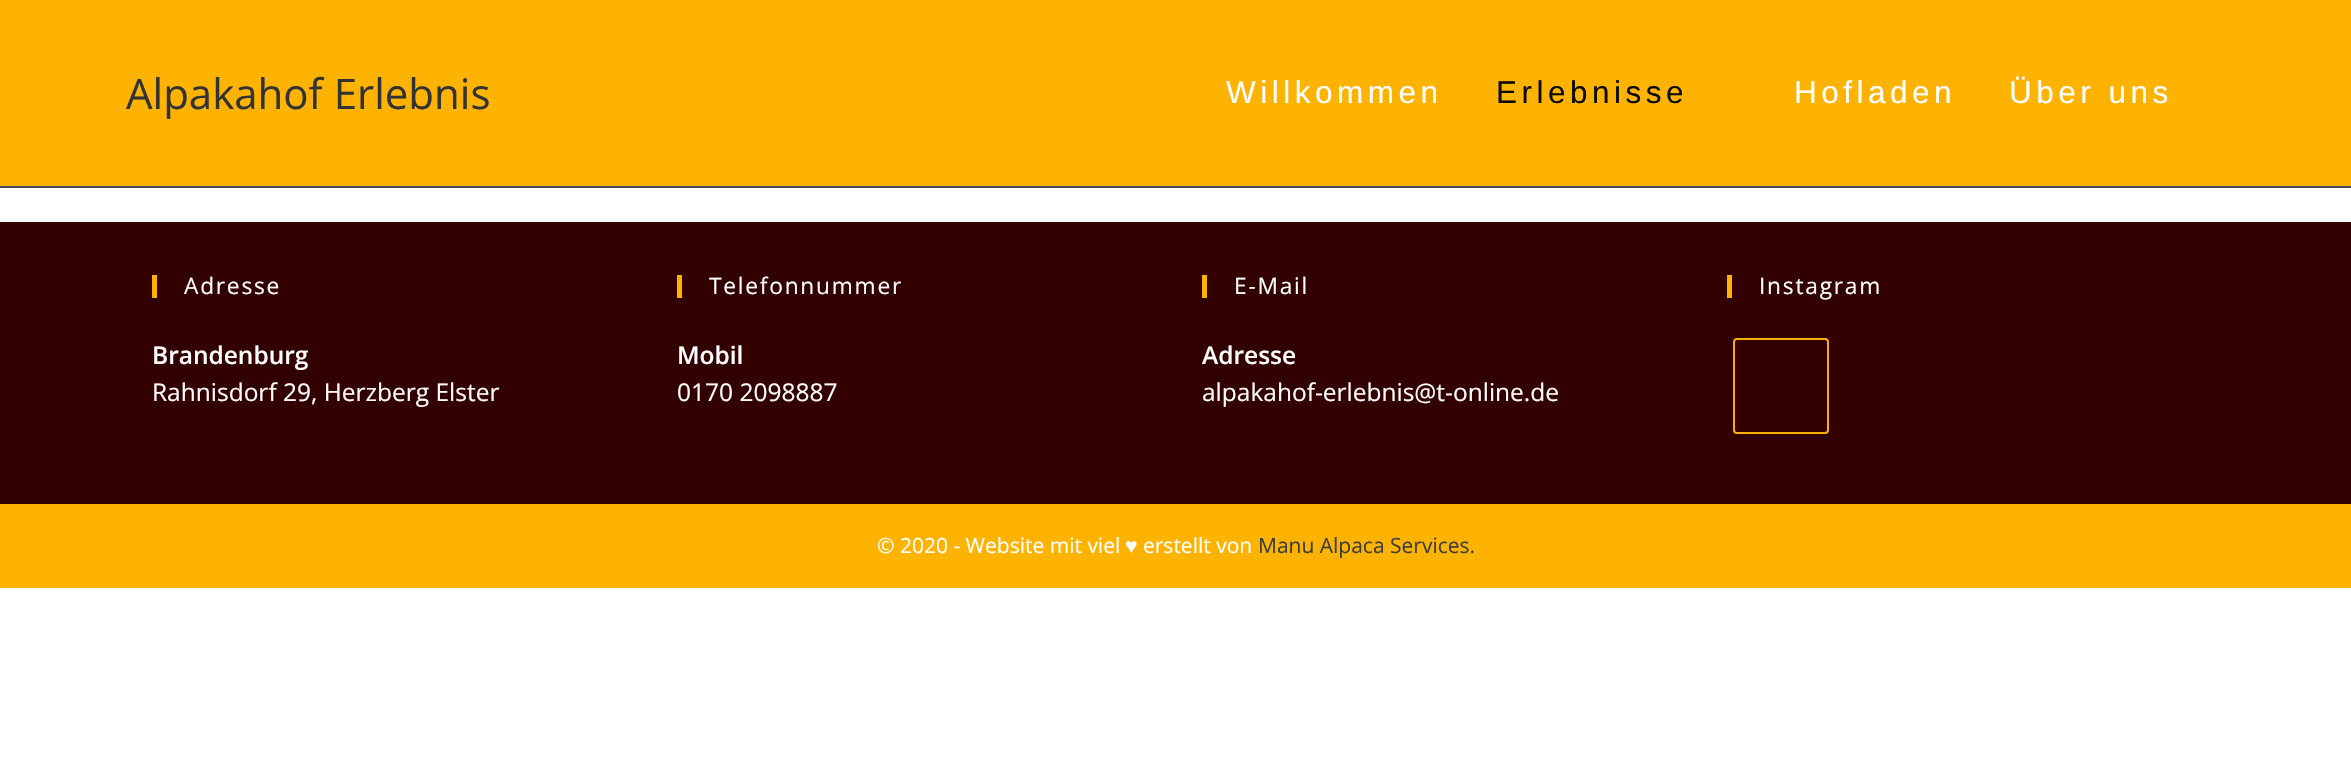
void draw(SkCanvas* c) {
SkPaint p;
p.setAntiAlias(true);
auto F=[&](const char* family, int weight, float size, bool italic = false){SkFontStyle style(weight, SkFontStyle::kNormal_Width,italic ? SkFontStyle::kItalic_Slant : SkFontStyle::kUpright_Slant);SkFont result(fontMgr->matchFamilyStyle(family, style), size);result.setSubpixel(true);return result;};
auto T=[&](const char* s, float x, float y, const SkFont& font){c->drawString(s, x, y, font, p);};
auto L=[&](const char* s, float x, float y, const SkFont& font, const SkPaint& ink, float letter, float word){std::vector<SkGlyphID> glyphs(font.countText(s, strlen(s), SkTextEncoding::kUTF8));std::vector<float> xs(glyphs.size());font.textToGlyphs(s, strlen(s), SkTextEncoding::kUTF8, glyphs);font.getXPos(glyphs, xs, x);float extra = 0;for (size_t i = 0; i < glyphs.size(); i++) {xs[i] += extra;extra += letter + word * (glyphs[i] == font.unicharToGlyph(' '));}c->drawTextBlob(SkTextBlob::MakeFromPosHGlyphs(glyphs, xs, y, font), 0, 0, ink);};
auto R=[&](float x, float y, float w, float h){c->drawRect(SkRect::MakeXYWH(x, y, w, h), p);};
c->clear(0xffffffff);
p.setColor(0xffffb301);
R(0,0,2351,186);
p.setColor(0xff494949);
R(0,186,2351,2);
auto f1 = F("Open Sans",400,42);
p.setColor(0xff333333);
T("Alpakahof Erlebnis",126,109,f1);
auto f2 = F("Liberation Sans",400,31.5);
p.setColor(0xffffffff);
L("Willkommen",1226,103,f2,p,4.5,0);
p.setColor(0xff0a0a0a);
L("Erlebnisse",1496,103,f2,p,4.5,0);
p.setColor(0xffffffff);
L("Hofladen",1794,103,f2,p,4.5,0);
L("Über uns",2009,103,f2,p,4.5,0);
p.setColor(0xff330000);
R(0,222,2351,282);
p.setColor(0xffffb301);
R(152,275,5,23);
auto f3 = F("Open Sans",400,22.75);
p.setColor(0xffffffff);
L("Adresse",184,294,f3,p,1.75,0);
auto f4 = F("Open Sans",600,24.5);
T("Brandenburg",152,364,f4);
auto f5 = F("Open Sans",400,24.5);
T("Rahnisdorf 29, Herzberg Elster",152,401,f5);
p.setColor(0xffffb301);
R(677,275,5,23);
p.setColor(0xffffffff);
L("Telefonnummer",709,294,f3,p,1.75,0);
T("Mobil",677,364,f4);
T("0170 2098887",677,401,f5);
p.setColor(0xffffb301);
R(1202,275,5,23);
p.setColor(0xffffffff);
L("E-Mail",1234,294,f3,p,1.75,0);
T("Adresse",1202,364,f4);
T("alpakahof-erlebnis@t-online.de",1202,401,f5);
p.setColor(0xffffb301);
R(1727,275,5,23);
p.setColor(0xffffffff);
L("Instagram",1759,294,f3,p,1.75,0);
p.setStroke(true);
p.setStrokeWidth(2);
p.setColor(0xfff5b00b);
c->drawRoundRect(SkRect::MakeXYWH(1734,339,94,94),3,3,p);
p.setStroke(false);
p.setColor(0xffffb301);
R(0,504,2351,84);
auto f6 = F("Open Sans",400,21);
p.setColor(0xffffffff);
T("© 2020 - Website mit viel",877,553,f6);
auto f7 = F("Liberation Sans",400,21);
T("♥",1125,553,f7);
T("erstellt von",1143,553,f6);
p.setColor(0xff3d3d3d);
T("Manu Alpaca Services.",1258,553,f6);
}
